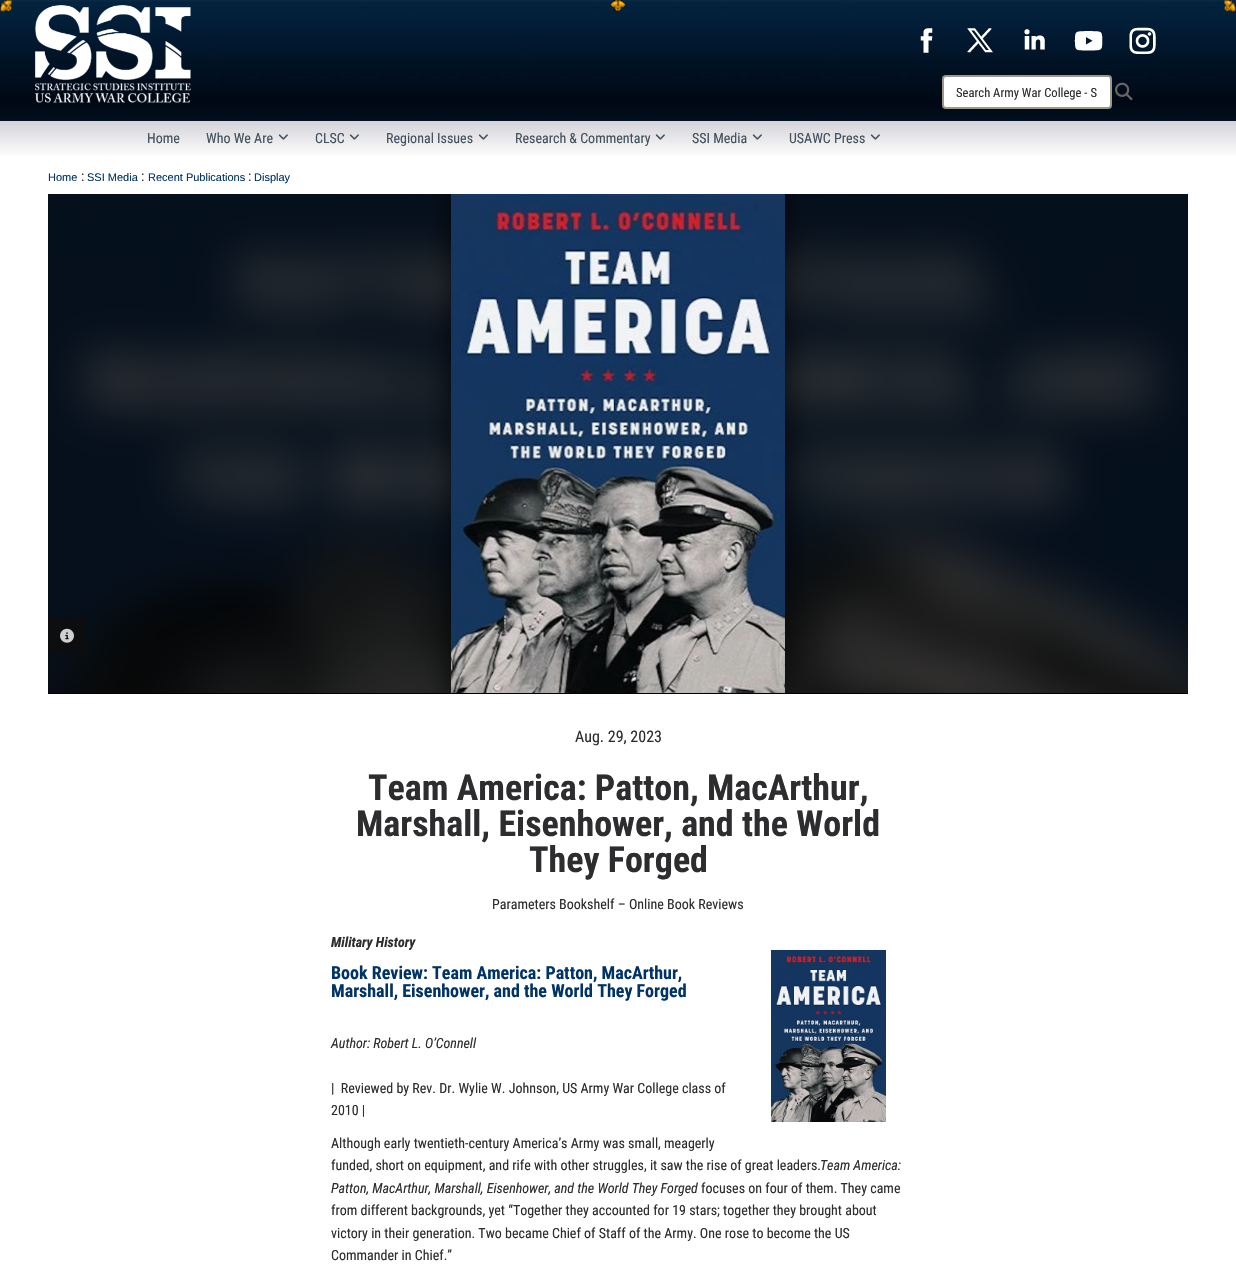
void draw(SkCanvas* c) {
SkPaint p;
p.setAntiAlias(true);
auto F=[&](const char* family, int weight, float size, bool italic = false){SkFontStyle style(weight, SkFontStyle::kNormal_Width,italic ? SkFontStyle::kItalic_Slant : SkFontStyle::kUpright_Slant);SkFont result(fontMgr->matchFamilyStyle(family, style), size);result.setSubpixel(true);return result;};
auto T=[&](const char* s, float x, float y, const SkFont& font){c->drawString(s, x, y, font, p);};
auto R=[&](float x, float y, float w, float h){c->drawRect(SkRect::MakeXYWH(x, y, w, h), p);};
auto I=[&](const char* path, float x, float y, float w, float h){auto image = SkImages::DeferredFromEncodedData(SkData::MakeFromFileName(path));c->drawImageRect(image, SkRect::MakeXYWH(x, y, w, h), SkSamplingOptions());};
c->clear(0xffffffff);
p.setColor(0xff011324);
R(0,120,1236,1);
I("2.png",0,0,1236,120);
I("1.png",611,0,14,11);
I("3.png",0,0,12,12);
I("4.png",1224,0,12,12);
I("5.png",35,5,156,98);
I("6.png",920,28,13,25);
I("7.png",967,28,26,25);
I("8.png",1024,29,21,21);
I("9.png",1074,31,29,20);
I("10.png",1129,27,27,27);
p.setColor(0xffffffff);
c->drawRoundRect(SkRect::MakeXYWH(943,76,168,32),3,3,p);
p.setStroke(true);
p.setStrokeWidth(2);
p.setColor(0xff9f978a);
c->drawRoundRect(SkRect::MakeXYWH(943,76,168,32),3,3,p);
auto f1 = F("Roboto Condensed",400,12.6);
p.setStroke(false);
p.setColor(0xff2d2d2f);
T("Search Army War College - S",956,97,f1);
I("11.png",1115,82,18,19);
{
const SkColor colors[] = {0xffd3d3d9,0xffffffff};
const float stops[] = {0,1};
const SkPoint ends[] = {{618,121}, {618,158}};
p.setShader(SkGradientShader::MakeLinear(ends, colors, stops, 2, SkTileMode::kClamp));
p.setAlpha(255);
}
R(0,121,1236,35);
auto f2 = F("Roboto Condensed",400,14);
p.setShader(nullptr);
p.setColor(0xff42505d);
T("Home",147,143,f2);
T("Who We Are",206,143,f2);
I("12.png",278,134,10,6);
T("CLSC",315,143,f2);
I("12.png",349,134,10,6);
T("Regional Issues",386,143,f2);
I("12.png",478,134,10,6);
T("Research & Commentary",515,143,f2);
I("12.png",655,134,10,6);
T("SSI Media",692,143,f2);
I("12.png",752,134,10,6);
T("USAWC Press",789,143,f2);
I("12.png",870,134,10,6);
auto f3 = F("Liberation Sans",400,11);
p.setColor(0xff003366);
T("Home",48,181,f3);
p.setColor(0xff2d2d2f);
T(":",81,181,f2);
p.setColor(0xff003366);
T("SSI Media",87,181,f3);
p.setColor(0xff2d2d2f);
T(":",141,181,f2);
p.setColor(0xff003366);
T("Recent Publications",148,181,f3);
p.setColor(0xff2d2d2f);
T(":",248,181,f2);
p.setColor(0xff003366);
T("Display",254,181,f3);
p.setColor(0xff000000);
R(48,194,1140,500);
I("14.png",48,194,1140,499);
c->save();
c->clipRect(SkRect::MakeXYWH(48,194,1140,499));
p.setColor(0x80000000);
p.setMaskFilter(SkMaskFilter::MakeBlur(kNormal_SkBlurStyle, 10));
c->drawRect(SkRect::MakeXYWH(446,189,344,510),p);
p.setMaskFilter(nullptr);
c->restore();
I("13.png",451,194,334,499);
p.setColor(0xcc0c0c0d);
R(48,618,38,36);
I("15.png",60,628,14,15);
auto f4 = F("Roboto Condensed",400,16);
p.setColor(0xff2d2d2f);
T("Aug. 29, 2023",575,742,f4);
auto f5 = F("Roboto Condensed",700,36);
T("Team America: Patton, MacArthur,",368,800,f5);
T("Marshall, Eisenhower, and the World",356,836,f5);
T("They Forged",529,872,f5);
T("Parameters Bookshelf – Online Book Reviews",492,909,f2);
auto f6 = F("Roboto Condensed",700,14,true);
T("Military History",331,947,f6);
auto f7 = F("Roboto Condensed",700,18);
p.setColor(0xff003366);
T("Book Review: Team America: Patton, MacArthur,",331,979,f7);
T("Marshall, Eisenhower, and the World They Forged",331,997,f7);
I("16.png",771,950,115,172);
auto f8 = F("Roboto Condensed",400,14,true);
p.setColor(0xff2d2d2f);
T("Author: Robert L. O’Connell",331,1048,f8);
T("|  Reviewed by Rev. Dr. Wylie W. Johnson, US Army War College class of",331,1093,f2);
T("2010 |",331,1115,f2);
T("Although early twentieth-century America’s Army was small, meagerly",331,1148,f2);
T("funded, short on equipment, and rife with other struggles, it saw the rise of great leaders.",331,1170,f2);
T("Team America:",820,1170,f8);
T("Patton, MacArthur, Marshall, Eisenhower, and the World They Forged",331,1193,f8);
T("focuses on four of them. They came",701,1193,f2);
T("from different backgrounds, yet “Together they accounted for 19 stars; together they brought about",331,1215,f2);
T("victory in their generation. Two became Chief of Staff of the Army. One rose to become the US",331,1238,f2);
T("Commander in Chief.”",331,1260,f2);
}
